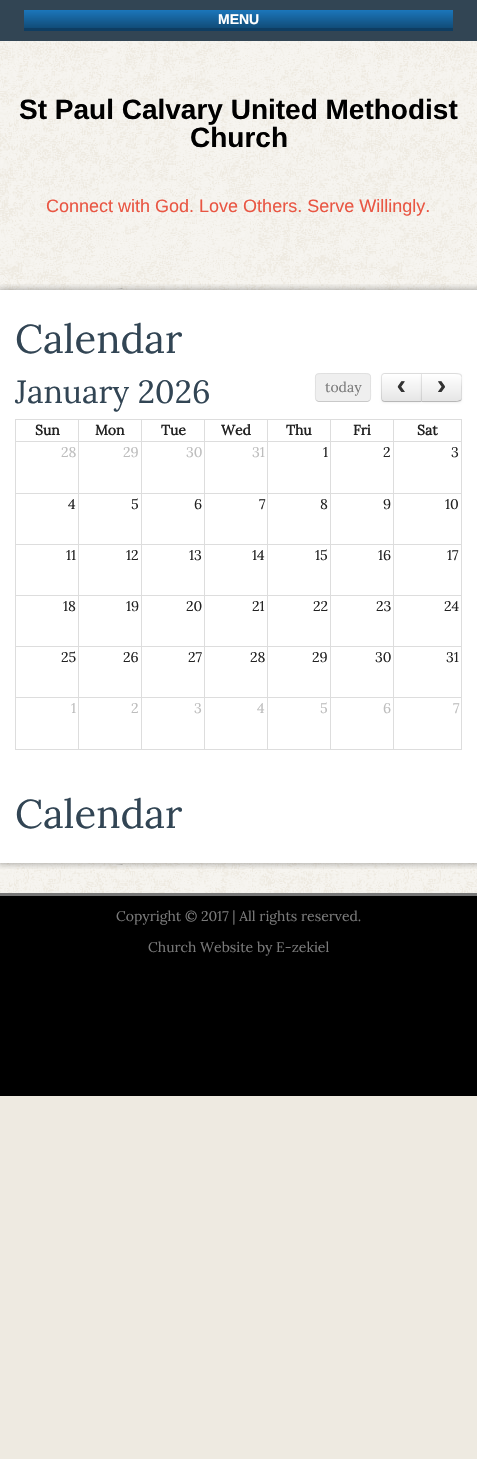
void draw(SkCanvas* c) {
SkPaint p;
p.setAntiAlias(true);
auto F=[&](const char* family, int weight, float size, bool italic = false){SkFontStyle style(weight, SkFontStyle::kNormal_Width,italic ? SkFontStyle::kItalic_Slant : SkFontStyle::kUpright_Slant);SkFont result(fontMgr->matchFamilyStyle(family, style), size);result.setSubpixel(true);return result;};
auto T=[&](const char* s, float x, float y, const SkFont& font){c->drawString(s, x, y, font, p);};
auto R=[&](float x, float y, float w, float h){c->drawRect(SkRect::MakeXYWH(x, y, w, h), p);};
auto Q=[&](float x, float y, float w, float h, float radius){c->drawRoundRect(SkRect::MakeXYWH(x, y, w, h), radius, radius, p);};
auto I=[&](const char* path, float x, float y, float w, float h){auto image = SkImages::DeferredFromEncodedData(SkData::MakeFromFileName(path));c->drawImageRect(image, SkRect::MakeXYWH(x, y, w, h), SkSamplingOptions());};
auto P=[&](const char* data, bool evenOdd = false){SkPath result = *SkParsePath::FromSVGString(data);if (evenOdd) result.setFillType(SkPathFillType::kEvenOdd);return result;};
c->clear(0xffeeeae1);
I("1.png",0,41,477,852);
p.setColor(0xff324554);
R(0,0,477,41);
{
const SkColor colors[] = {0xff1b76bb,0xff114c78};
const float stops[] = {0,1};
const SkPoint ends[] = {{239,10}, {239,28}};
p.setShader(SkGradientShader::MakeLinear(ends, colors, stops, 2, SkTileMode::kClamp));
p.setAlpha(255);
}
R(24,10,429,18);
p.setShader(nullptr);
p.setColor(0xff0e3d62);
R(24,28,429,3);
auto f1 = F("Liberation Sans",700,14);
p.setColor(0xffffffff);
T("MENU",218,24,f1);
auto f2 = F("Liberation Sans",700,28);
p.setColor(0xff000000);
T("St Paul Calvary United Methodist",19,119,f2);
T("Church",190,147,f2);
auto f3 = F("Liberation Sans",400,18);
p.setColor(0xffe95643);
T("Connect with God. Love Others. Serve Willingly.",46,212,f3);
p.setColor(0xffffffff);
R(0,290,477,573);
I("2.png",0,284,477,6);
auto f4 = F("Lora",400,40);
p.setColor(0xff324554);
T("Calendar",15,353,f4);
auto f5 = F("Lora",400,32);
T("January 2026",15,403,f5);
p.setColor(0xffefefef);
Q(315,373,56,29,4);
p.setStroke(true);
p.setStrokeWidth(1);
p.setColor(0x40595959);
c->drawPath(P("M369.5 400.5l-2 1h-49l-2-1"),p);
p.setColor(0x1a595959);
c->drawPath(P("M316.5 400.5c-2-2-1-10.5-1-13c0-14.5-2.5-14 11.5-14h32c14 0 11.5-.5 11.5 14c0 2.5 1 11-1 13"),p);
auto f6 = F("Lora",400,14);
p.setStroke(false);
p.setColor(0xff7a7a7a);
T("today",325,392,f6);
p.setColor(0x0d000000);
p.setMaskFilter(SkMaskFilter::MakeBlur(kNormal_SkBlurStyle, 1));
c->drawRoundRect(SkRect::MakeXYWH(381,374,41,29),4,4,p);
p.setMaskFilter(nullptr);
p.setColor(0xfff5f5f5);
c->drawPath(P("M385 373h37v29h-37c-2 0-4-2-4-4v-21c0-2 2-4 4-4z"),p);
c->save();
c->clipPath(P("M385 373h37v29h-37c-2 0-4-2-4-4v-21c0-2 2-4 4-4z"),true);
{
const SkColor colors[] = {0xffffffff,0xffe6e6e6};
const float stops[] = {0,1};
const SkPoint ends[] = {{402,374}, {402,401}};
p.setShader(SkGradientShader::MakeLinear(ends, colors, stops, 2, SkTileMode::kClamp));
p.setAlpha(255);
}
R(381,374,40,27);
c->restore();
p.setShader(nullptr);
p.setColor(0x1a000000);
c->drawPath(P("M385 373c-1 0-2 .5-3 1l1 1c0-1 1-1 2-1h36l1-1z"),p);
p.setColor(0x40000000);
c->drawPath(P("M422 402l-1-1h-36c-1 0-2 0-2-1l-1 1c1 .5 2 1 3 1z"),p);
p.setColor(0x1a000000);
c->drawPath(P("M381 377v21c0 1 .5 2 1 3l1-1c-1 0-1-1-1-2v-21c0-1 0-2 1-2l-1-1c-.5 1-1 2-1 3z"),p);
auto f7 = F("Liberation Mono",700,28);
p.setColor(0xff333333);
T("‹",393,394,f7);
p.setColor(0x0d000000);
p.setMaskFilter(SkMaskFilter::MakeBlur(kNormal_SkBlurStyle, 1));
c->drawRoundRect(SkRect::MakeXYWH(421,374,41,29),4,4,p);
p.setMaskFilter(nullptr);
p.setColor(0xfff5f5f5);
c->drawPath(P("M421 373h37c2 0 4 2 4 4v21c0 2-2 4-4 4h-37z"),p);
c->save();
c->clipPath(P("M421 373h37c2 0 4 2 4 4v21c0 2-2 4-4 4h-37z"),true);
{
const SkColor colors[] = {0xffffffff,0xffe6e6e6};
const float stops[] = {0,1};
const SkPoint ends[] = {{442,374}, {442,401}};
p.setShader(SkGradientShader::MakeLinear(ends, colors, stops, 2, SkTileMode::kClamp));
p.setAlpha(255);
}
R(421,374,41,27);
c->restore();
p.setShader(nullptr);
p.setColor(0x1a000000);
c->drawPath(P("M421 373l1 1h30c4.5 0 7 0 8 1l1-1c-1.5-.5-4.5-1-9-1z"),p);
c->drawPath(P("M462 399l-1 2l-1-1c1-.5 1-1 1.5-2l-.5-10l.5-11c-.5-.5-.5-1.5-1.5-2l1-1l1 2z"),p);
p.setColor(0x40000000);
c->drawPath(P("M452 402c5 0 7.5-.5 9-1l-1-1c-1 1-3.5 1-8 1h-30l-1 1z"),p);
p.setColor(0x1a000000);
c->drawPath(P("M421 373v29l1-1v-27z"),p);
p.setColor(0xff333333);
T("›",433,394,f7);
p.setColor(0xffdddddd);
R(15,419,378,1);
R(15,441,378,1);
R(15,419,1,74);
auto f8 = F("Lora",700,14);
p.setColor(0xff222222);
T("Sun",35,435,f8);
p.setColor(0xffdddddd);
R(78,419,1,74);
p.setColor(0xff222222);
T("Mon",95,435,f8);
p.setColor(0xffdddddd);
R(141,419,1,74);
p.setColor(0xff222222);
T("Tue",161,435,f8);
p.setColor(0xffdddddd);
R(204,419,1,74);
p.setColor(0xff222222);
T("Wed",221,435,f8);
p.setColor(0xffdddddd);
R(267,419,1,74);
p.setColor(0xff222222);
T("Thu",286,435,f8);
p.setColor(0xffdddddd);
R(330,419,1,74);
p.setColor(0xff222222);
T("Fri",353,435,f8);
p.setStroke(true);
p.setColor(0xffdddddd);
c->drawRect(SkRect::MakeXYWH(393.5,419.5,68,22),p);
p.setStroke(false);
p.setColor(0xff222222);
T("Sat",417,435,f8);
p.setColor(0xffbdbdbd);
T("28",61,457,f6);
T("29",123,457,f6);
T("30",186,457,f6);
T("31",252,457,f6);
p.setColor(0xff222222);
T("1",323,457,f6);
T("2",383,457,f6);
p.setColor(0xffdddddd);
R(461,442,1,51);
R(393,442,1,51);
p.setColor(0xff222222);
T("3",451,457,f6);
p.setColor(0xffdddddd);
R(15,493,447,1);
R(15,493,1,51);
p.setColor(0xff222222);
T("4",68,509,f6);
p.setColor(0xffdddddd);
R(78,493,1,51);
p.setColor(0xff222222);
T("5",131,509,f6);
p.setColor(0xffdddddd);
R(141,493,1,51);
p.setColor(0xff222222);
T("6",194,509,f6);
p.setColor(0xffdddddd);
R(204,493,1,51);
p.setColor(0xff222222);
T("7",259,509,f6);
p.setColor(0xffdddddd);
R(267,493,1,51);
p.setColor(0xff222222);
T("8",320,509,f6);
p.setColor(0xffdddddd);
R(330,493,1,51);
p.setColor(0xff222222);
T("9",383,509,f6);
p.setColor(0xffdddddd);
R(461,493,1,51);
R(393,493,1,51);
p.setColor(0xff222222);
T("10",445,509,f6);
p.setColor(0xffdddddd);
R(15,544,447,1);
R(15,544,1,51);
p.setColor(0xff222222);
T("11",66,560,f6);
p.setColor(0xffdddddd);
R(78,544,1,51);
p.setColor(0xff222222);
T("12",126,560,f6);
p.setColor(0xffdddddd);
R(141,544,1,51);
p.setColor(0xff222222);
T("13",189,560,f6);
p.setColor(0xffdddddd);
R(204,544,1,51);
p.setColor(0xff222222);
T("14",252,560,f6);
p.setColor(0xffdddddd);
R(267,544,1,51);
p.setColor(0xff222222);
T("15",315,560,f6);
p.setColor(0xffdddddd);
R(330,544,1,51);
p.setColor(0xff222222);
T("16",378,560,f6);
p.setColor(0xffdddddd);
R(461,544,1,51);
R(393,544,1,51);
p.setColor(0xff222222);
T("17",447,560,f6);
p.setColor(0xffdddddd);
R(15,595,447,1);
R(15,595,1,51);
p.setColor(0xff222222);
T("18",63,611,f6);
p.setColor(0xffdddddd);
R(78,595,1,51);
p.setColor(0xff222222);
T("19",126,611,f6);
p.setColor(0xffdddddd);
R(141,595,1,51);
p.setColor(0xff222222);
T("20",186,611,f6);
p.setColor(0xffdddddd);
R(204,595,1,51);
p.setColor(0xff222222);
T("21",252,611,f6);
p.setColor(0xffdddddd);
R(267,595,1,51);
p.setColor(0xff222222);
T("22",313,611,f6);
p.setColor(0xffdddddd);
R(330,595,1,51);
p.setColor(0xff222222);
T("23",376,611,f6);
p.setColor(0xffdddddd);
R(461,595,1,51);
R(393,595,1,51);
p.setColor(0xff222222);
T("24",444,611,f6);
p.setColor(0xffdddddd);
R(15,646,447,1);
R(15,646,1,51);
p.setColor(0xff222222);
T("25",61,662,f6);
p.setColor(0xffdddddd);
R(78,646,1,51);
p.setColor(0xff222222);
T("26",123,662,f6);
p.setColor(0xffdddddd);
R(141,646,1,51);
p.setColor(0xff222222);
T("27",188,662,f6);
p.setColor(0xffdddddd);
R(204,646,1,51);
p.setColor(0xff222222);
T("28",250,662,f6);
p.setColor(0xffdddddd);
R(267,646,1,51);
p.setColor(0xff222222);
T("29",312,662,f6);
p.setColor(0xffdddddd);
R(330,646,1,51);
p.setColor(0xff222222);
T("30",375,662,f6);
p.setColor(0xffdddddd);
R(461,646,1,51);
R(393,646,1,51);
p.setColor(0xff222222);
T("31",446,662,f6);
p.setColor(0xffdddddd);
R(15,697,378,1);
R(15,749,378,1);
R(15,697,1,53);
p.setColor(0xffbdbdbd);
T("1",71,713,f6);
p.setColor(0xffdddddd);
R(78,697,1,53);
p.setColor(0xffbdbdbd);
T("2",131,713,f6);
p.setColor(0xffdddddd);
R(141,697,1,53);
p.setColor(0xffbdbdbd);
T("3",194,713,f6);
p.setColor(0xffdddddd);
R(204,697,1,53);
p.setColor(0xffbdbdbd);
T("4",257,713,f6);
p.setColor(0xffdddddd);
R(267,697,1,53);
p.setColor(0xffbdbdbd);
T("5",320,713,f6);
p.setColor(0xffdddddd);
R(330,697,1,53);
p.setColor(0xffbdbdbd);
T("6",383,713,f6);
p.setStroke(true);
p.setColor(0xffdddddd);
c->drawRect(SkRect::MakeXYWH(393.5,697.5,68,52),p);
p.setStroke(false);
p.setColor(0xffbdbdbd);
T("7",453,713,f6);
p.setColor(0xff324554);
T("Calendar",15,828,f4);
I("3.png",0,863,477,6);
p.setColor(0xff000000);
R(0,896,477,200);
p.setColor(0xff777777);
R(0,893,477,3);
p.setColor(0xff7a7a7a);
T("Copyright © 2017 | All rights reserved.",116,921,f6);
T("Church Website by E-zekiel",148,952,f6);
}
